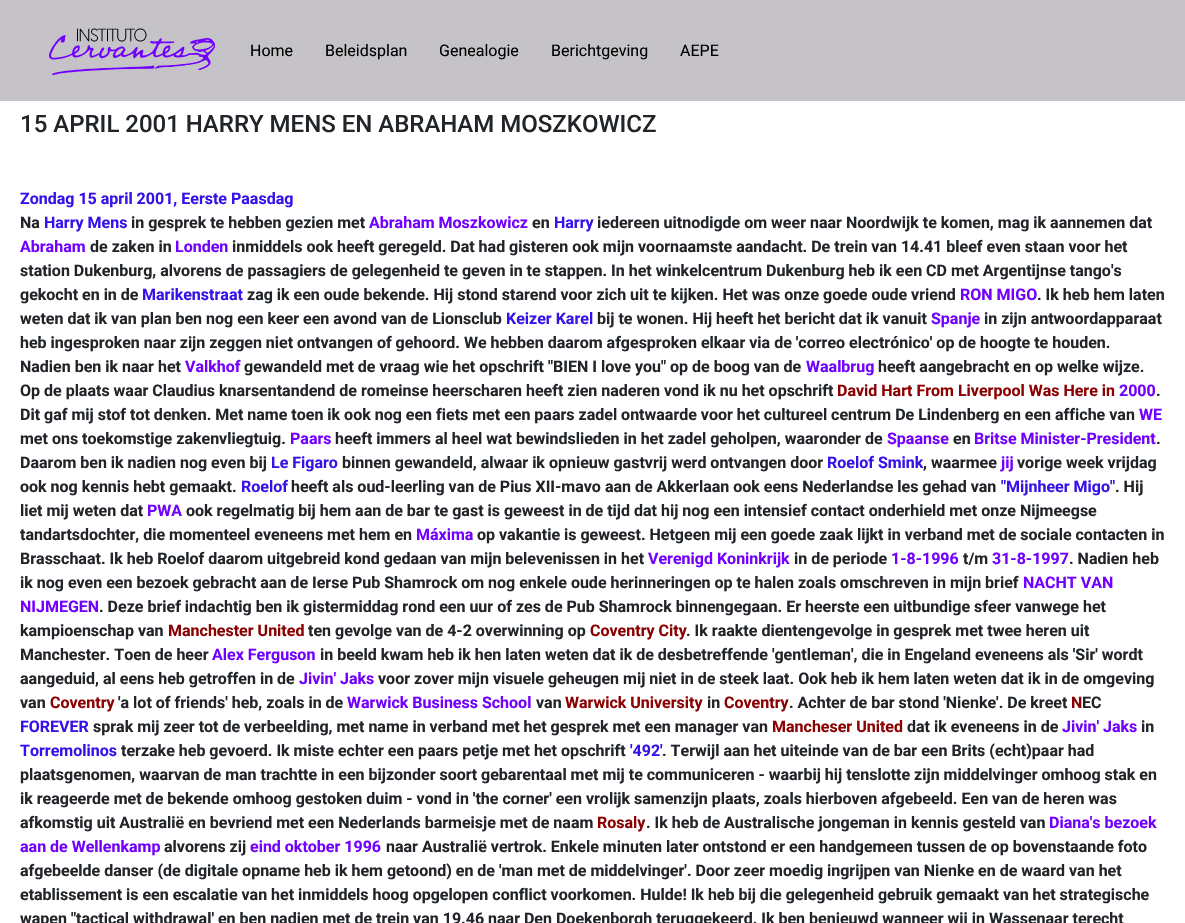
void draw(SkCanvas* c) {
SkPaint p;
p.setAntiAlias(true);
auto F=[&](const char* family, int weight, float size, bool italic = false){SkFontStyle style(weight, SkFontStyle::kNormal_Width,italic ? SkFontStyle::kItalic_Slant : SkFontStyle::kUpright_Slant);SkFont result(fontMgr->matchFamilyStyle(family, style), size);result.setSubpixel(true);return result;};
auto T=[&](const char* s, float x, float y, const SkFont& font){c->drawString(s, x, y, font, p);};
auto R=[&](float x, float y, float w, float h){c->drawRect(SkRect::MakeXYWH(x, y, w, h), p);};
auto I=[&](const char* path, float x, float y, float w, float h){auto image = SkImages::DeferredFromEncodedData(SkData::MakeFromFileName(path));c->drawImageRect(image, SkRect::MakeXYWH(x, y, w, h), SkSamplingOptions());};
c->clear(0xffffffff);
p.setColor(0xffc5c3c7);
R(0,0,1185,101);
I("1.png",49,28,166,47);
auto f1 = F("Roboto",400,16);
p.setColor(0xff000000);
T("Home",250,56,f1);
T("Beleidsplan",325,56,f1);
T("Genealogie",439,56,f1);
T("Berichtgeving",551,56,f1);
T("AEPE",680,56,f1);
auto f2 = F("Roboto",500,24);
p.setColor(0xff212529);
T("15 APRIL 2001 HARRY MENS EN ABRAHAM MOSZKOWICZ",20,132,f2);
auto f3 = F("Roboto",700,16);
p.setColor(0xff3810e9);
T("Zondag 15 april 2001, Eerste Paasdag",20,204,f3);
p.setColor(0xff212529);
T("Na",20,228,f3);
p.setColor(0xff3810e9);
T("Harry Mens",44,228,f3);
p.setColor(0xff212529);
T("in gesprek te hebben gezien met",131,228,f3);
p.setColor(0xff7200ff);
T("Abraham Moszkowicz",369,228,f3);
p.setColor(0xff212529);
T("en",532,228,f3);
p.setColor(0xff3810e9);
T("Harry",554,228,f3);
p.setColor(0xff212529);
T("iedereen uitnodigde om weer naar Noordwijk te komen, mag ik aannemen dat",597,228,f3);
p.setColor(0xff7200ff);
T("Abraham",20,252,f3);
p.setColor(0xff212529);
T("de zaken in",90,252,f3);
p.setColor(0xff7200ff);
T("Londen",175,252,f3);
p.setColor(0xff212529);
T("inmiddels ook heeft geregeld. Dat had gisteren ook mijn voornaamste aandacht. De trein van 14.41 bleef even staan voor het",232,252,f3);
T("station Dukenburg, alvorens de passagiers de gelegenheid te geven in te stappen. In het winkelcentrum Dukenburg heb ik een CD met Argentijnse tango's",20,276,f3);
T("gekocht en in de",20,300,f3);
p.setColor(0xff3810e9);
T("Marikenstraat",142,300,f3);
p.setColor(0xff212529);
T("zag ik een oude bekende. Hij stond starend voor zich uit te kijken. Het was onze goede oude vriend",247,300,f3);
p.setColor(0xff7200ff);
T("RON MIGO",960,300,f3);
p.setColor(0xff212529);
T(". Ik heb hem laten",1037,300,f3);
T("weten dat ik van plan ben nog een keer een avond van de Lionsclub",20,324,f3);
p.setColor(0xff3810e9);
T("Keizer Karel",506,324,f3);
p.setColor(0xff212529);
T("bij te wonen. Hij heeft het bericht dat ik vanuit",597,324,f3);
p.setColor(0xff7200ff);
T("Spanje",931,324,f3);
p.setColor(0xff212529);
T("in zijn antwoordapparaat",984,324,f3);
T("heb ingesproken naar zijn zeggen niet ontvangen of gehoord. We hebben daarom afgesproken elkaar via de 'correo electrónico' op de hoogte te houden.",20,348,f3);
T("Nadien ben ik naar het",20,372,f3);
p.setColor(0xff7200ff);
T("Valkhof",185,372,f3);
p.setColor(0xff212529);
T("gewandeld met de vraag wie het opschrift \"BIEN I love you\" op de boog van de",244,372,f3);
p.setColor(0xff7200ff);
T("Waalbrug",806,372,f3);
p.setColor(0xff212529);
T("heeft aangebracht en op welke wijze.",878,372,f3);
T("Op de plaats waar Claudius knarsentandend de romeinse heerscharen heeft zien naderen vond ik nu het opschrift",20,396,f3);
p.setColor(0xff8b0000);
T("David Hart From Liverpool Was Here in",837,396,f3);
p.setColor(0xff7200ff);
T("2000",1119,396,f3);
p.setColor(0xff212529);
T(".",1156,396,f3);
T("Dit gaf mij stof tot denken. Met name toen ik ook nog een fiets met een paars zadel ontwaarde voor het cultureel centrum De Lindenberg en een affiche van",20,420,f3);
p.setColor(0xff7200ff);
T("WE",1139,420,f3);
p.setColor(0xff212529);
T("met ons toekomstige zakenvliegtuig.",20,444,f3);
p.setColor(0xff7200ff);
T("Paars",290,444,f3);
p.setColor(0xff212529);
T("heeft immers al heel wat bewindslieden in het zadel geholpen, waaronder de",335,444,f3);
p.setColor(0xff7200ff);
T("Spaanse",887,444,f3);
p.setColor(0xff212529);
T("en",953,444,f3);
p.setColor(0xff7200ff);
T("Britse Minister-President",974,444,f3);
p.setColor(0xff212529);
T(".",1156,444,f3);
T("Daarom ben ik nadien nog even bij",20,468,f3);
p.setColor(0xff3810e9);
T("Le Figaro",271,468,f3);
p.setColor(0xff212529);
T("binnen gewandeld, alwaar ik opnieuw gastvrij werd ontvangen door",342,468,f3);
p.setColor(0xff3810e9);
T("Roelof Smink",827,468,f3);
p.setColor(0xff212529);
T(", waarmee",923,468,f3);
p.setColor(0xff7200ff);
T("jij",1001,468,f3);
p.setColor(0xff212529);
T("vorige week vrijdag",1017,468,f3);
T("ook nog kennis hebt gemaakt.",20,492,f3);
p.setColor(0xff3810e9);
T("Roelof",241,492,f3);
p.setColor(0xff212529);
T("heeft als oud-leerling van de Pius XII-mavo aan de Akkerlaan ook eens Nederlandse les gehad van",291,492,f3);
p.setColor(0xff3810e9);
T("\"Mijnheer Migo\"",1001,492,f3);
p.setColor(0xff212529);
T(". Hij",1115,492,f3);
T("liet mij weten dat",20,516,f3);
p.setColor(0xff7200ff);
T("PWA",147,516,f3);
p.setColor(0xff212529);
T("ook regelmatig bij hem aan de bar te gast is geweest in de tijd dat hij nog een intensief contact onderhield met onze Nijmeegse",186,516,f3);
T("tandartsdochter, die momenteel eveneens met hem en",20,540,f3);
p.setColor(0xff7200ff);
T("Máxima",416,540,f3);
p.setColor(0xff212529);
T("op vakantie is geweest. Hetgeen mij een goede zaak lijkt in verband met de sociale contacten in",477,540,f3);
T("Brasschaat. Ik heb Roelof daarom uitgebreid kond gedaan van mijn belevenissen in het",20,564,f3);
p.setColor(0xff7200ff);
T("Verenigd Koninkrijk",648,564,f3);
p.setColor(0xff212529);
T("in de periode",794,564,f3);
p.setColor(0xff7200ff);
T("1-8-1996",891,564,f3);
p.setColor(0xff212529);
T("t/m",963,564,f3);
p.setColor(0xff7200ff);
T("31-8-1997",992,564,f3);
p.setColor(0xff212529);
T(". Nadien heb",1069,564,f3);
T("ik nog even een bezoek gebracht aan de Ierse Pub Shamrock om nog enkele oude herinneringen op te halen zoals omschreven in mijn brief",20,588,f3);
p.setColor(0xff7200ff);
T("NACHT VAN",1023,588,f3);
T("NIJMEGEN",20,612,f3);
p.setColor(0xff212529);
T(". Deze brief indachtig ben ik gistermiddag rond een uur of zes de Pub Shamrock binnengegaan. Er heerste een uitbundige sfeer vanwege het",99,612,f3);
T("kampioenschap van",20,636,f3);
p.setColor(0xff8b0000);
T("Manchester United",168,636,f3);
p.setColor(0xff212529);
T("ten gevolge van de 4-2 overwinning op",308,636,f3);
p.setColor(0xff8b0000);
T("Coventry City",590,636,f3);
p.setColor(0xff212529);
T(". Ik raakte dientengevolge in gesprek met twee heren uit",686,636,f3);
T("Manchester. Toen de heer",20,660,f3);
p.setColor(0xff7200ff);
T("Alex Ferguson",212,660,f3);
p.setColor(0xff212529);
T("in beeld kwam heb ik hen laten weten dat ik de desbetreffende 'gentleman', die in Engeland eveneens als 'Sir' wordt",320,660,f3);
T("aangeduid, al eens heb getroffen in de",20,684,f3);
p.setColor(0xff7200ff);
T("Jivin' Jaks",299,684,f3);
p.setColor(0xff212529);
T("voor zover mijn visuele geheugen mij niet in de steek laat. Ook heb ik hem laten weten dat ik in de omgeving",378,684,f3);
T("van",20,708,f3);
p.setColor(0xff8b0000);
T("Coventry",50,708,f3);
p.setColor(0xff212529);
T("'a lot of friends' heb, zoals in de",118,708,f3);
p.setColor(0xff7200ff);
T("Warwick Business School",347,708,f3);
p.setColor(0xff212529);
T("van",536,708,f3);
p.setColor(0xff8b0000);
T("Warwick University",565,708,f3);
p.setColor(0xff212529);
T("in",707,708,f3);
p.setColor(0xff8b0000);
T("Coventry",724,708,f3);
p.setColor(0xff212529);
T(". Achter de bar stond 'Nienke'. De kreet",789,708,f3);
p.setColor(0xff8b0000);
T("N",1071,708,f3);
p.setColor(0xff212529);
T("EC",1082,708,f3);
p.setColor(0xff3810e9);
T("FOREVER",20,732,f3);
p.setColor(0xff212529);
T("sprak mij zeer tot de verbeelding, met name in verband met het gesprek met een manager van",93,732,f3);
p.setColor(0xff8b0000);
T("Mancheser United",772,732,f3);
p.setColor(0xff212529);
T("dat ik eveneens in de",907,732,f3);
p.setColor(0xff7200ff);
T("Jivin' Jaks",1062,732,f3);
p.setColor(0xff212529);
T("in",1141,732,f3);
p.setColor(0xff3810e9);
T("Torremolinos",20,756,f3);
p.setColor(0xff212529);
T("terzake heb gevoerd. Ik miste echter een paars petje met het opschrift",121,756,f3);
p.setColor(0xff3810e9);
T("'492'",630,756,f3);
p.setColor(0xff212529);
T(". Terwijl aan het uiteinde van de bar een Brits (echt)paar had",662,756,f3);
T("plaatsgenomen, waarvan de man trachtte in een bijzonder soort gebarentaal met mij te communiceren - waarbij hij tenslotte zijn middelvinger omhoog stak en",20,780,f3);
T("ik reageerde met de bekende omhoog gestoken duim - vond in 'the corner' een vrolijk samenzijn plaats, zoals hierboven afgebeeld. Een van de heren was",20,804,f3);
T("afkomstig uit Australië en bevriend met een Nederlands barmeisje met de naam",20,828,f3);
p.setColor(0xff8b0000);
T("Rosaly",597,828,f3);
p.setColor(0xff212529);
T(". Ik heb de Australische jongeman in kennis gesteld van",646,828,f3);
p.setColor(0xff7200ff);
T("Diana's bezoek",1049,828,f3);
T("aan de Wellenkamp",20,852,f3);
p.setColor(0xff212529);
T("alvorens zij",164,852,f3);
p.setColor(0xff7200ff);
T("eind oktober 1996",250,852,f3);
p.setColor(0xff212529);
T("naar Australië vertrok. Enkele minuten later ontstond er een handgemeen tussen de op bovenstaande foto",386,852,f3);
T("afgebeelde danser (de digitale opname heb ik hem getoond) en de 'man met de middelvinger'. Door zeer moedig ingrijpen van Nienke en de waard van het",20,876,f3);
T("etablissement is een escalatie van het inmiddels hoog opgelopen conflict voorkomen. Hulde! Ik heb bij die gelegenheid gebruik gemaakt van het strategische",20,900,f3);
T("wapen \"tactical withdrawal' en ben nadien met de trein van 19.46 naar Den Doekenborgh teruggekeerd. Ik ben benieuwd wanneer wij in Wassenaar terecht",20,924,f3);
}
